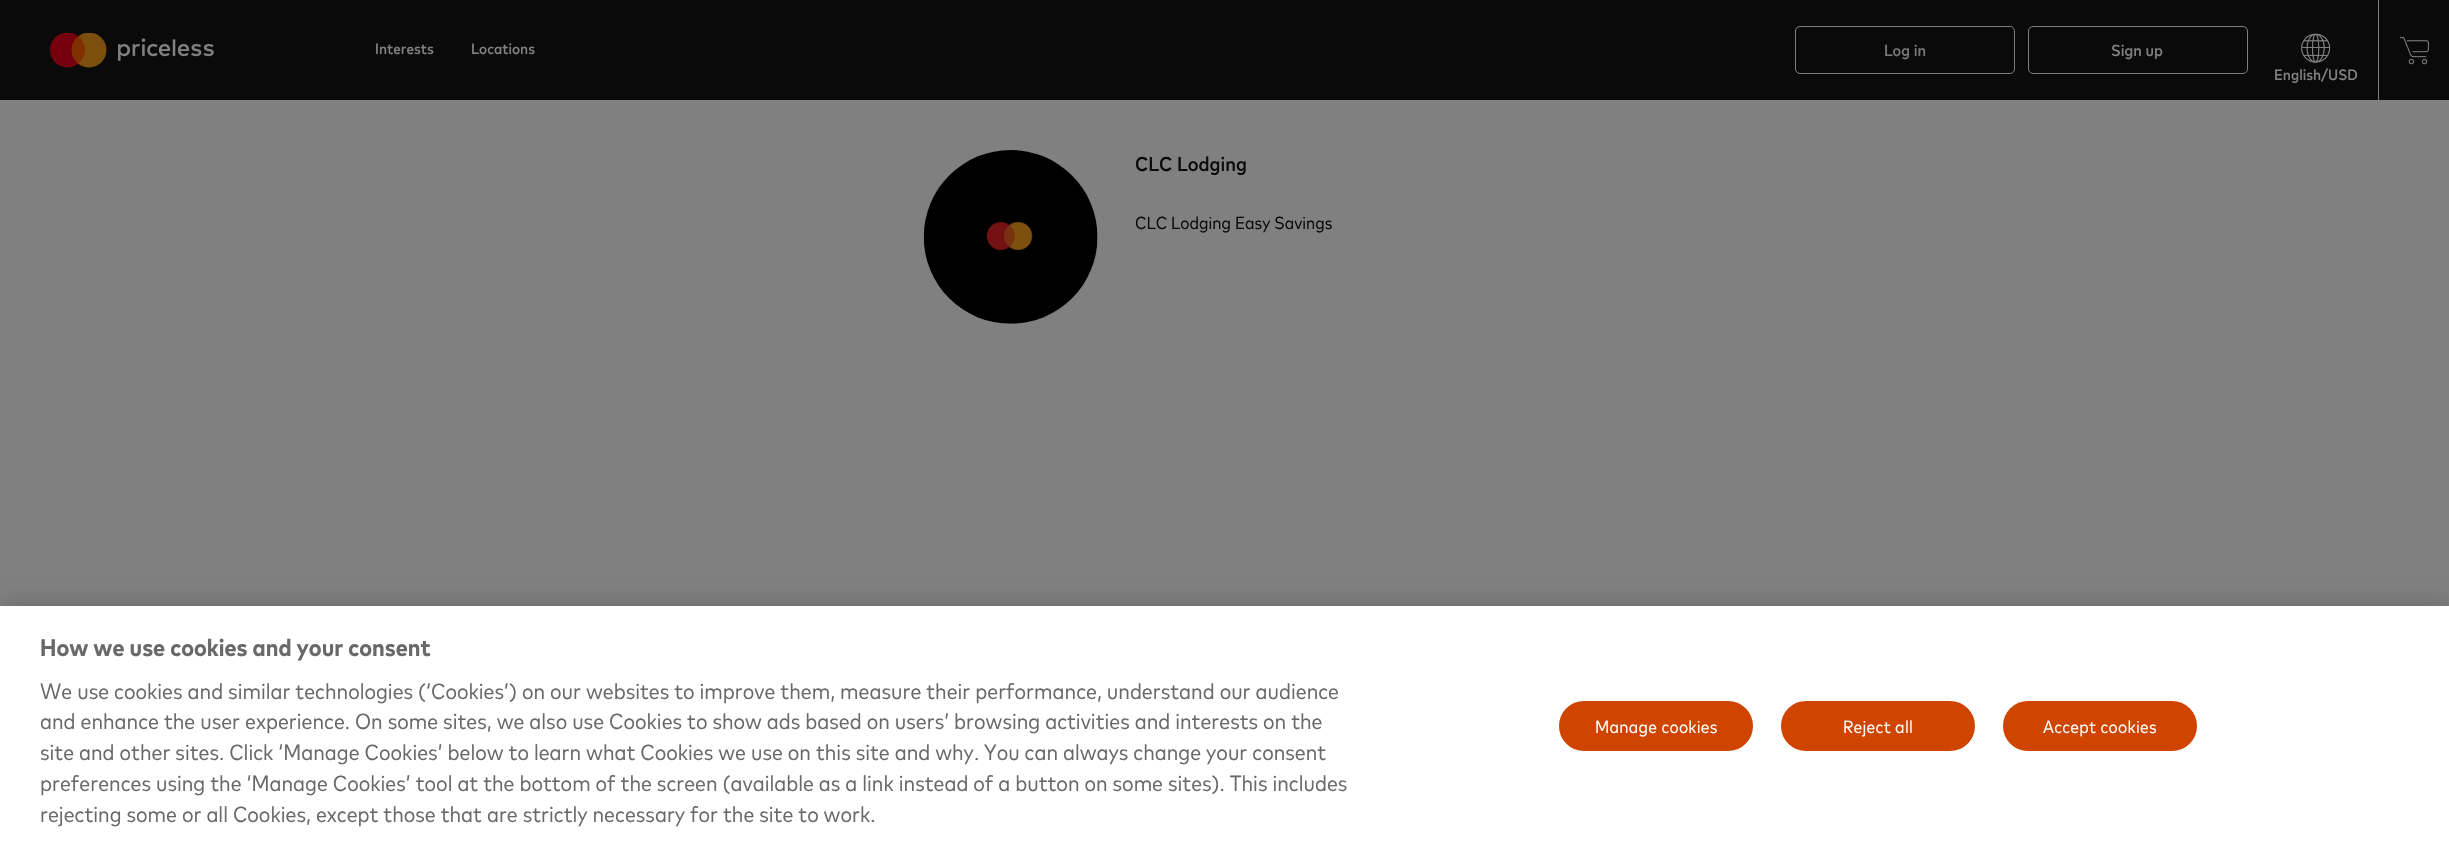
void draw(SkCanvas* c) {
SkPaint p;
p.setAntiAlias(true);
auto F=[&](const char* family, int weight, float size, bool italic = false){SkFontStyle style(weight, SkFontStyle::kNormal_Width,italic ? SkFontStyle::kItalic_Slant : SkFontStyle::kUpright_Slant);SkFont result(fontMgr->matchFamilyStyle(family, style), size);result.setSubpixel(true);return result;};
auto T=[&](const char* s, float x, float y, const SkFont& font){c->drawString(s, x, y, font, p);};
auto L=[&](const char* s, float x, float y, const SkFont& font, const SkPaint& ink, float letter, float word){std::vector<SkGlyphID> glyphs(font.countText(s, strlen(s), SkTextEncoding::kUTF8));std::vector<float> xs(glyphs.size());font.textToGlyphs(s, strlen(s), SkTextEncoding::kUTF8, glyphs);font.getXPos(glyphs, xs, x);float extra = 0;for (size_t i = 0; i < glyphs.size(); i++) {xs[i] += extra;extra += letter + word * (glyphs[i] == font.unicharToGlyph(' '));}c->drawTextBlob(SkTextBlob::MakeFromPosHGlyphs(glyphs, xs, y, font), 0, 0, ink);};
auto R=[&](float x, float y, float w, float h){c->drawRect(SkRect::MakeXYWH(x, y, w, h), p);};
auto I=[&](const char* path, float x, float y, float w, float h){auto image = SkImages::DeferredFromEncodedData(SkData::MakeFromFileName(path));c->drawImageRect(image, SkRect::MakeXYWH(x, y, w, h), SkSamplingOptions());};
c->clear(0xff808080);
p.setColor(0xff0a0a0a);
R(0,0,2449,100);
I("1.png",50,33,164,35);
auto f1 = F("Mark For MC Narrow",500,15);
p.setColor(0xff808080);
T("Interests",375,54,f1);
T("Locations",471,54,f1);
p.setStroke(true);
p.setStrokeWidth(1);
c->drawRoundRect(SkRect::MakeXYWH(1795.5,26.5,219,47),4.5,4.5,p);
auto f2 = F("Mark For MC Narrow",500,16);
p.setStroke(false);
p.setColor(0xff79797a);
T("Log in",1884,56,f2);
p.setStroke(true);
p.setColor(0xff808080);
c->drawRoundRect(SkRect::MakeXYWH(2028.5,26.5,219,47),4.5,4.5,p);
p.setStroke(false);
T("Sign up",2111,56,f2);
I("2.png",2301,33,30,30);
T("English/USD",2274,80,f1);
R(2378,0,1,100);
I("3.png",2399,36,30,29);
I("4.png",923,150,175,174);
auto f3 = F("Mark For MC Narrow",500,20);
p.setColor(0xff0a0a0a);
T("CLC Lodging",1135,171,f3);
auto f4 = F("Mark For MC Narrow",400,17.5);
T("CLC Lodging Easy Savings",1135,229,f4);
p.setColor(0x33000000);
p.setMaskFilter(SkMaskFilter::MakeBlur(kNormal_SkBlurStyle, 11));
c->drawRect(SkRect::MakeXYWH(0,606,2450,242),p);
p.setMaskFilter(nullptr);
p.setColor(0xffffffff);
R(0,606,2449,241);
auto f5 = F("Mark For MC Narrow",700,24);
p.setColor(0xff696969);
T("How we use cookies and your consent",40,656,f5);
auto f6 = F("Mark For MC Narrow",400,22);
T("We use cookies and similar technologies (‘Cookies’) on our websites to improve them, measure their performance, understand our audience",40,699,f6);
T("and enhance the user experience. On some sites, we also use Cookies to show ads based on users’ browsing activities and interests on the",40,729,f6);
T("site and other sites. Click ‘Manage Cookies’ below to learn what Cookies we use on this site and why. You can always change your consent",40,760,f6);
T("preferences using the ‘Manage Cookies’ tool at the bottom of the screen (available as a link instead of a button on some sites). This includes",40,791,f6);
T("rejecting some or all Cookies, except those that are strictly necessary for the site to work.",40,822,f6);
p.setColor(0xffcf4500);
c->drawRoundRect(SkRect::MakeXYWH(1557.5,699.5,197,53),26.5,26.5,p);
p.setStroke(true);
p.setStrokeWidth(3);
p.setColor(0xffffffff);
c->drawRoundRect(SkRect::MakeXYWH(1557.5,699.5,197,53),26.5,26.5,p);
p.setStroke(false);
L("Manage cookies",1595,733,f4,p,.25,0);
p.setColor(0xffcf4500);
c->drawRoundRect(SkRect::MakeXYWH(1779.5,699.5,197,53),26.5,26.5,p);
p.setStroke(true);
p.setColor(0xffffffff);
c->drawRoundRect(SkRect::MakeXYWH(1779.5,699.5,197,53),26.5,26.5,p);
p.setStroke(false);
L("Reject all",1843,733,f4,p,.25,0);
p.setColor(0xffcf4500);
c->drawRoundRect(SkRect::MakeXYWH(2001.5,699.5,197,53),26.5,26.5,p);
p.setStroke(true);
p.setColor(0xffffffff);
c->drawRoundRect(SkRect::MakeXYWH(2001.5,699.5,197,53),26.5,26.5,p);
p.setStroke(false);
L("Accept cookies",2043,733,f4,p,.25,0);
}
